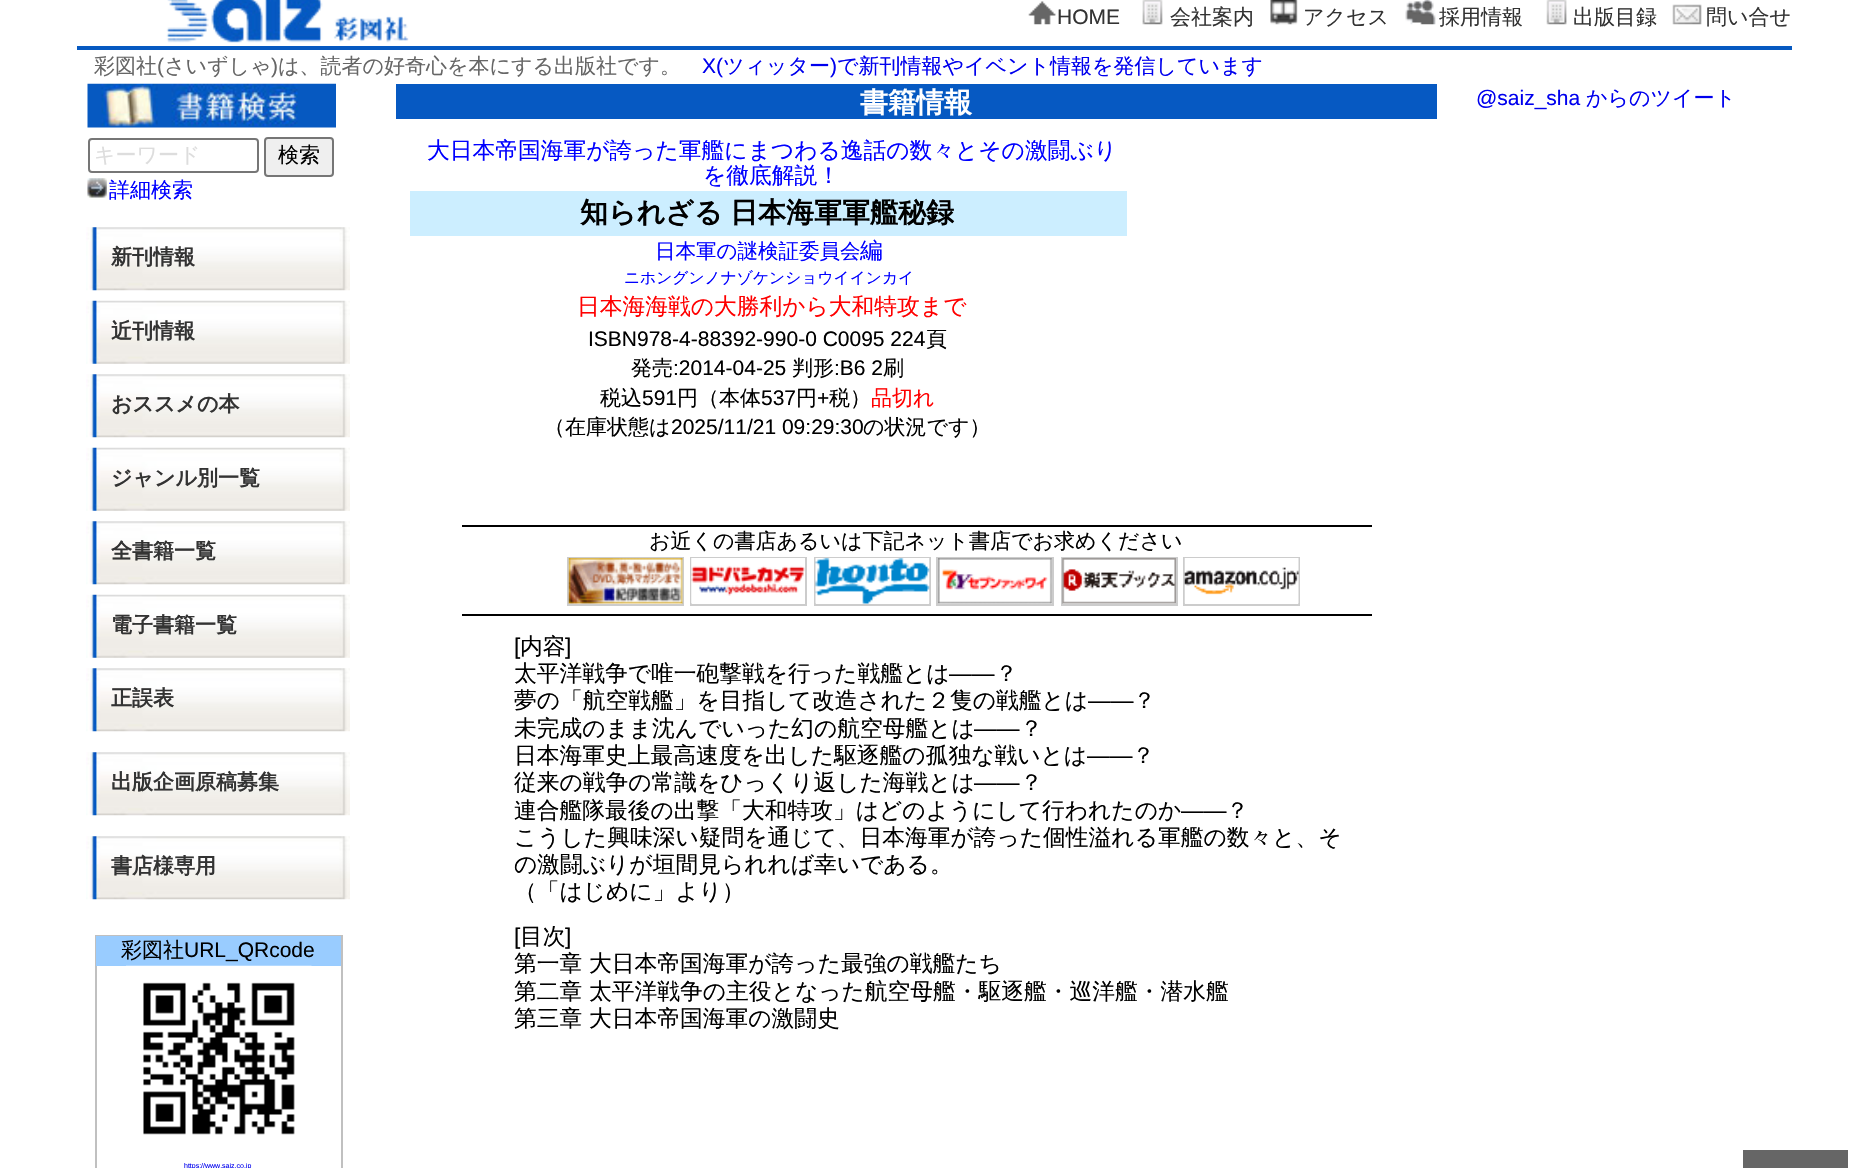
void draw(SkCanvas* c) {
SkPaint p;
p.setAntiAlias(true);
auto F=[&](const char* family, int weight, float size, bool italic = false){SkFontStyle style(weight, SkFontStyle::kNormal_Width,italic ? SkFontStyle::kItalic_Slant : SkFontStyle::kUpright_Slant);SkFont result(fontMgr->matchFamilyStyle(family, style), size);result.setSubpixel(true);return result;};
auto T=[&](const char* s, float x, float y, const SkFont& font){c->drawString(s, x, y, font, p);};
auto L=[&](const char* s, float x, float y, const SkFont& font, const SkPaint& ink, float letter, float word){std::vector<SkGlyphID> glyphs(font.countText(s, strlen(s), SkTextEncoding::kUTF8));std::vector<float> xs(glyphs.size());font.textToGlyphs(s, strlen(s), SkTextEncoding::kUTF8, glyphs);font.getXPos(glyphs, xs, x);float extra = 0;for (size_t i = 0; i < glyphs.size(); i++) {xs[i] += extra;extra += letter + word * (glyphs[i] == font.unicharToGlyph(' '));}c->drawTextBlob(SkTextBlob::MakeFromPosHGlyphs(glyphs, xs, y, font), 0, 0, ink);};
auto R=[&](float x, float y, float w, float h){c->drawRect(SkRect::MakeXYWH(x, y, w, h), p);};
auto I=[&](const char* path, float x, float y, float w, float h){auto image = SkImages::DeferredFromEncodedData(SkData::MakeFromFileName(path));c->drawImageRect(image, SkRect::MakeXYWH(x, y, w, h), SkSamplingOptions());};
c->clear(0xffffffff);
p.setColor(0xff0659c1);
R(77,46,1715,4);
I("1.png",166,0,243,43);
I("2.png",1028,1,28,24);
auto f1 = F("Liberation Sans",400,21);
p.setColor(0xff333333);
T("HOME",1057,24,f1);
I("3.png",1142,0,21,25);
auto f2 = F("WenQuanYi Zen Hei",500,21);
T("会社案内",1170,24,f2);
I("4.png",1270,0,28,25);
T("アクセス",1303,24,f2);
I("5.png",1405,0,31,25);
T("採用情報",1439,24,f2);
I("6.png",1546,0,21,25);
T("出版目録",1573,24,f2);
I("7.png",1672,4,30,21);
T("問い合せ",1706,24,f2);
p.setColor(0xff666666);
T("彩図社",94,73,f2);
T("(",157,73,f1);
T("さいずしゃ",164,73,f2);
T(")",271,73,f1);
T("は、読者の好奇心を本にする出版社です。",278,73,f2);
p.setColor(0xff0000ee);
T("X(",702,73,f1);
T("ツィッター",723,73,f2);
T(")",830,73,f1);
T("で新刊情報やイベント情報を発信しています",837,73,f2);
p.setColor(0xff0659c2);
R(396,84,1041,35);
auto f3 = F("WenQuanYi Zen Hei",700,28);
p.setColor(0xffffffff);
T("書籍情報",860,112,f3);
auto f4 = F("WenQuanYi Zen Hei",500,22.75);
p.setColor(0xff0000ff);
T("大日本帝国海軍が誇った軍艦にまつわる逸話の数々とその激闘ぶり",427,158,f4);
T("を徹底解説！",703,183,f4);
p.setColor(0xffcceeff);
R(410,191,717,45);
p.setColor(0xff000000);
L("知られざる 日本海軍軍艦秘録",580,222,f3,p,0,-1);
auto f5 = F("WenQuanYi Zen Hei",500,20.5);
p.setColor(0xff0000ff);
T("日本軍の謎検証委員会",655,258,f5);
T("編",860,258,f4);
auto f6 = F("WenQuanYi Zen Hei",500,15.75);
T("ニホングンノナゾケンショウイインカイ",624,283,f6);
p.setColor(0xffff0000);
T("日本海海戦の大勝利から大和特攻まで",577,314,f4);
p.setColor(0xff000000);
T("ISBN978-4-88392-990-0 C0095 224",588,346,f1);
T("頁",926,346,f2);
T("発売",631,375,f2);
T(":2014-04-25",673,375,f1);
T("判形",792,375,f2);
T(":B6 2",834,375,f1);
T("刷",883,375,f2);
T("税込",600,405,f2);
T("591",642,405,f1);
T("円（本体",677,405,f2);
T("537",761,405,f1);
T("円",796,405,f2);
T("+",817,405,f1);
T("税）",829,405,f2);
p.setColor(0xffff0000);
T("品切れ",871,405,f2);
p.setColor(0xff000000);
T("（在庫状態は",544,434,f2);
T("2025/11/21 09:29:30",671,434,f1);
T("の状況です）",863,434,f2);
R(462,525,910,2);
R(462,614,910,2);
T("お近くの書店あるいは下記ネット書店でお求めください",649,548,f2);
p.setStroke(true);
p.setStrokeWidth(2);
p.setColor(0xffcccccc);
c->drawRect(SkRect::MakeXYWH(568,558,115,47),p);
c->drawRect(SkRect::MakeXYWH(691,558,115,47),p);
c->drawRect(SkRect::MakeXYWH(815,558,115,47),p);
c->drawRect(SkRect::MakeXYWH(937,558,116,47),p);
c->drawRect(SkRect::MakeXYWH(1062,558,115,47),p);
c->drawRect(SkRect::MakeXYWH(1184,558,115,47),p);
I("8.png",568,558,115,46);
I("9.png",691,558,114,46);
I("10.png",815,558,115,46);
I("11.png",938,558,114,46);
I("12.png",1062,558,114,46);
I("13.png",1184,558,115,46);
auto f7 = F("Liberation Sans",400,22.75);
p.setStroke(false);
p.setColor(0xff000000);
T("[",514,654,f7);
T("内容",520,654,f4);
T("]",565,654,f7);
T("太平洋戦争で唯一砲撃戦を行った戦艦とは",514,681,f4);
T("――",949,681,f7);
T("？",995,681,f4);
T("夢の「航空戦艦」を目指して改造された２隻の戦艦とは",514,708,f4);
T("――",1088,708,f7);
T("？",1133,708,f4);
T("未完成のまま沈んでいった幻の航空母艦とは",514,736,f4);
T("――",974,736,f7);
T("？",1020,736,f4);
T("日本海軍史上最高速度を出した駆逐艦の孤独な戦いとは",514,763,f4);
T("――",1087,763,f7);
T("？",1132,763,f4);
T("従来の戦争の常識をひっくり返した海戦とは",514,790,f4);
T("――",974,790,f7);
T("？",1020,790,f4);
T("連合艦隊最後の出撃「大和特攻」はどのようにして行われたのか",514,818,f4);
T("――",1181,818,f7);
T("？",1226,818,f4);
T("こうした興味深い疑問を通じて、日本海軍が誇った個性溢れる軍艦の数々と、そ",514,845,f4);
T("の激闘ぶりが垣間見られれば幸いである。",514,872,f4);
T("（「はじめに」より）",514,899,f4);
T("[",514,944,f7);
T("目次",520,944,f4);
T("]",565,944,f7);
T("第一章 大日本帝国海軍が誇った最強の戦艦たち",514,971,f4);
T("第二章 太平洋戦争の主役となった航空母艦・駆逐艦・巡洋艦・潜水艦",514,999,f4);
T("第三章 大日本帝国海軍の激闘史",514,1026,f4);
p.setColor(0xff0000ee);
T("@saiz_sha",1476,105,f1);
T("からのツイート",1586,105,f2);
I("14.png",87,83,249,45);
p.setStroke(true);
p.setColor(0xff767676);
c->drawRoundRect(SkRect::MakeXYWH(89,139,169,33),3,3,p);
p.setStroke(false);
p.setColor(0xffdddddd);
T("キーワード",94,162,f2);
p.setColor(0xffefefef);
c->drawRoundRect(SkRect::MakeXYWH(265,138,68,38),3,3,p);
p.setStroke(true);
p.setColor(0xff767676);
c->drawRoundRect(SkRect::MakeXYWH(265,138,68,38),3,3,p);
p.setStroke(false);
p.setColor(0xff000000);
T("検索",278,162,f2);
I("15.png",87,178,20,20);
p.setColor(0xff0000ff);
T("詳細検索",109,197,f2);
I("16.png",86,227,264,64);
auto f8 = F("WenQuanYi Zen Hei",700,21);
p.setColor(0xff333333);
T("新刊情報",111,264,f8);
I("17.png",86,300,264,64);
T("近刊情報",111,338,f8);
I("16.png",86,374,264,64);
T("おススメの本",111,411,f8);
I("17.png",86,447,264,64);
T("ジャンル別一覧",111,485,f8);
I("16.png",86,521,264,64);
T("全書籍一覧",111,558,f8);
I("17.png",86,594,264,64);
T("電子書籍一覧",111,632,f8);
I("16.png",86,668,264,64);
T("正誤表",111,705,f8);
I("16.png",86,752,264,64);
T("出版企画原稿募集",111,789,f8);
I("16.png",86,836,264,64);
T("書店様専用",111,873,f8);
p.setStroke(true);
p.setColor(0xffc0c0c0);
c->drawRect(SkRect::MakeXYWH(96,936,246,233),p);
p.setStroke(false);
p.setColor(0xff99ccff);
R(96,936,245,30);
p.setColor(0xff000000);
T("彩図社",121,957,f2);
T("URL_QRcode",184,957,f1);
I("18.png",126,965,186,170);
auto f9 = F("Liberation Sans",400,7);
p.setColor(0xff0000ee);
T("https://www.saiz.co.jp",184,1168,f9);
p.setColor(0xff666666);
R(1743,1150,105,18);
}
